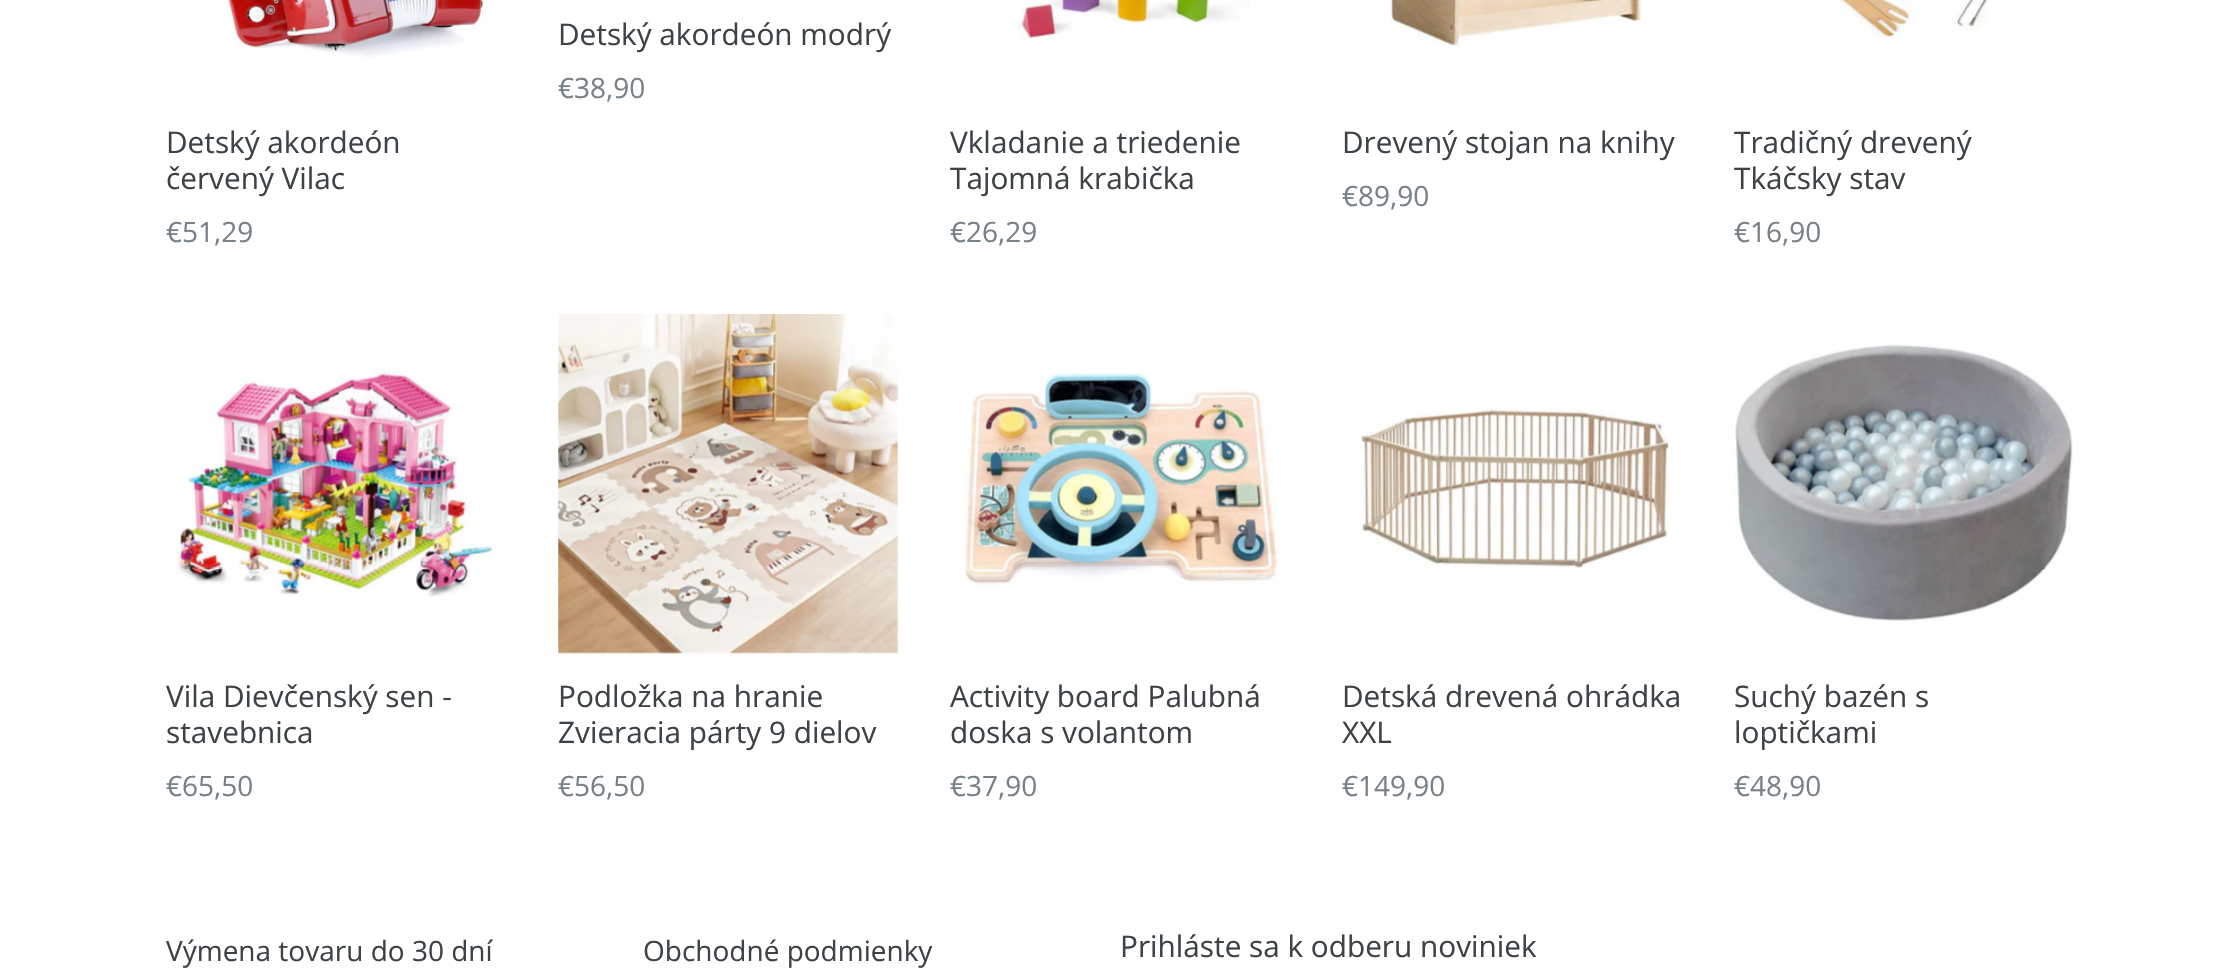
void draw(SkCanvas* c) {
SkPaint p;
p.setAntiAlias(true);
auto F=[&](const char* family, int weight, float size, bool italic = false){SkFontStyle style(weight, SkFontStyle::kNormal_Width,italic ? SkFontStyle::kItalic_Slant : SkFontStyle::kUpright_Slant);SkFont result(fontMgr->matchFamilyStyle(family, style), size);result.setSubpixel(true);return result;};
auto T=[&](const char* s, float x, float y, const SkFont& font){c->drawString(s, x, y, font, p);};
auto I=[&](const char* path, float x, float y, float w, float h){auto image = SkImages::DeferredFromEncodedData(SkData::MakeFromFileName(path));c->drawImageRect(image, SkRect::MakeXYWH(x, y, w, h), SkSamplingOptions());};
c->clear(0xffffffff);
auto f1 = F("Open Sans",400,29.75);
p.setColor(0xff3d4246);
T("Detský akordeón modrý",558,45,f1);
auto f2 = F("Open Sans",400,28);
p.setColor(0xff788188);
T("€38,90",558,98,f2);
I("1.png",228,0,256,57);
p.setColor(0xff3d4246);
T("Detský akordeón",166,153,f1);
T("červený Vilac",166,189,f1);
p.setColor(0xff788188);
T("€51,29",166,242,f2);
I("2.png",1017,0,233,40);
p.setColor(0xff3d4246);
T("Vkladanie a triedenie",950,153,f1);
T("Tajomná krabička",950,189,f1);
p.setColor(0xff788188);
T("€26,29",950,242,f2);
I("3.png",1390,0,252,49);
p.setColor(0xff3d4246);
T("Drevený stojan na knihy",1342,153,f1);
p.setColor(0xff788188);
T("€89,90",1342,206,f2);
I("4.png",1836,0,152,40);
p.setColor(0xff3d4246);
T("Tradičný drevený",1734,153,f1);
T("Tkáčsky stav",1734,189,f1);
p.setColor(0xff788188);
T("€16,90",1734,242,f2);
I("5.png",175,368,318,229);
p.setColor(0xff3d4246);
T("Vila Dievčenský sen -",166,707,f1);
T("stavebnica",166,743,f1);
p.setColor(0xff788188);
T("€65,50",166,796,f2);
I("6.png",558,314,341,340);
p.setColor(0xff3d4246);
T("Podložka na hranie",558,707,f1);
T("Zvieracia párty 9 dielov",558,743,f1);
p.setColor(0xff788188);
T("€56,50",558,796,f2);
I("7.png",965,373,315,213);
p.setColor(0xff3d4246);
T("Activity board Palubná",950,707,f1);
T("doska s volantom",950,743,f1);
p.setColor(0xff788188);
T("€37,90",950,796,f2);
I("8.png",1361,408,308,160);
p.setColor(0xff3d4246);
T("Detská drevená ohrádka",1342,707,f1);
T("XXL",1342,743,f1);
p.setColor(0xff788188);
T("€149,90",1342,796,f2);
I("9.png",1734,344,339,277);
p.setColor(0xff3d4246);
T("Suchý bazén s",1734,707,f1);
T("loptičkami",1734,743,f1);
p.setColor(0xff788188);
T("€48,90",1734,796,f2);
p.setColor(0xff3d4246);
T("Výmena tovaru do 30 dní",166,961,f2);
T("Obchodné podmienky",643,961,f2);
T("Prihláste sa k odberu noviniek",1120,957,f1);
}
